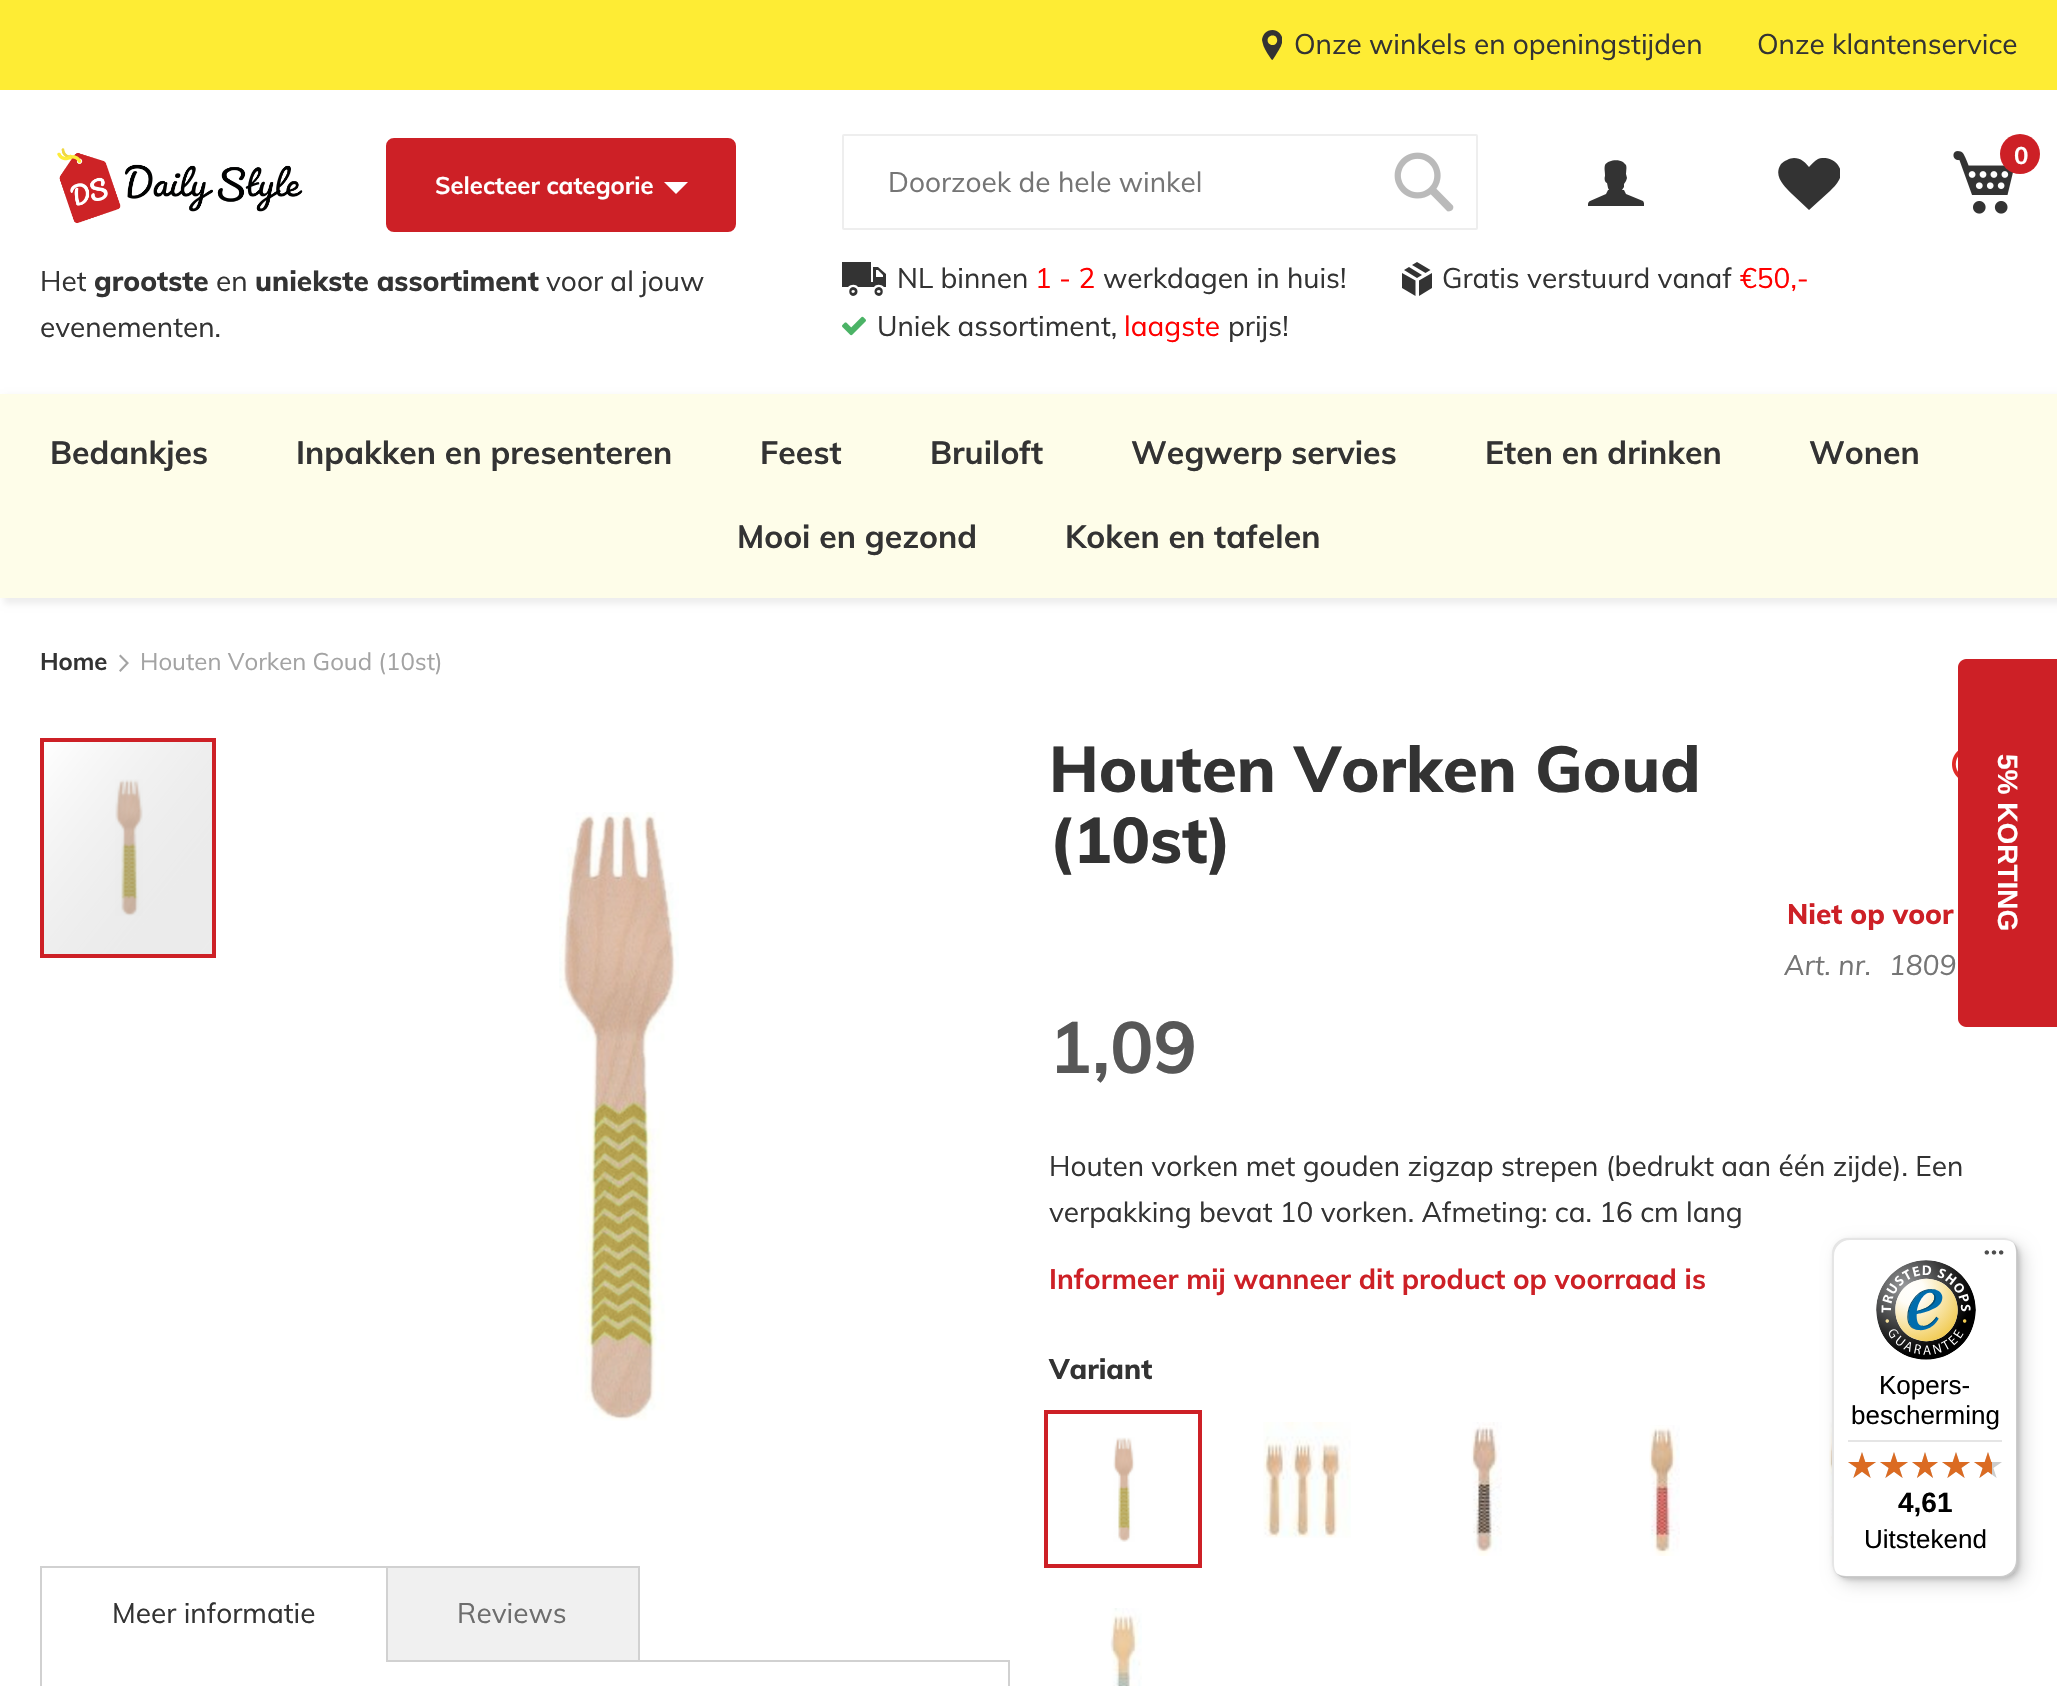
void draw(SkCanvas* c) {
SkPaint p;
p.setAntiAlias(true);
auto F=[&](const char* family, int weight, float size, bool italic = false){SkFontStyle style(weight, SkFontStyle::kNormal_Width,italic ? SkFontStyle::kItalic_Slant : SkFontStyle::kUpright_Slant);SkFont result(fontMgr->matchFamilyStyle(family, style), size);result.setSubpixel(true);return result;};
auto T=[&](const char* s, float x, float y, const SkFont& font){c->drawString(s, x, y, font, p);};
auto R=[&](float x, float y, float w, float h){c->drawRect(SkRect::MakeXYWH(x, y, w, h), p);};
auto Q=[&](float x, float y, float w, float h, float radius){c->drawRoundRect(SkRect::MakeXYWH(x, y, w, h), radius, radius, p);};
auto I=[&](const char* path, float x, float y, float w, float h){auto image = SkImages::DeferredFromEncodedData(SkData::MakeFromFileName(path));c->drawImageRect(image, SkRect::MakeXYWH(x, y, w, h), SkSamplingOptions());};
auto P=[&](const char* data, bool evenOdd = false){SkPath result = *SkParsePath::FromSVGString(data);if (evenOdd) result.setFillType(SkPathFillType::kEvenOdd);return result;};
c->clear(0xffffffff);
p.setColor(0xfffeec34);
R(0,0,2057,90);
c->save();
c->clipRect(SkRect::MakeXYWH(1262,30,20,30));
p.setColor(0xff333333);
c->drawPath(P("M1272.5 30c-3 0-5.5 1-7.5 3c-1.5 2-3 4.5-3 7c.5 2.5 1 4 1.5 6c2 5 5 9 8 13.5l1 .5c.5 0 8-12.5 8.5-14c.5-2 1.5-3.5 1.5-6c0-2.5-1-5-3-7c-2-2-4.5-3-7-3zm0 15c-6.5 0-6.5-9.5 0-9.5c6-.5 6.5 9.5 0 9.5z",true),p);
c->restore();
auto f1 = F("Muli",400,28);
T("Onze winkels en openingstijden",1294,54,f1);
T("Onze klantenservice",1757,54,f1);
I("1.png",57,148,246,76);
p.setColor(0xffcd2026);
c->drawRoundRect(SkRect::MakeXYWH(387,139,348,92),7,7,p);
p.setStroke(true);
p.setStrokeWidth(2);
c->drawRoundRect(SkRect::MakeXYWH(387,139,348,92),7,7,p);
auto f2 = F("Muli",700,24);
p.setStroke(false);
p.setColor(0xffffffff);
T("Selecteer categorie",435,194,f2);
c->drawPath(P("M664 182h24l-12 12z"),p);
p.setColor(0xff333333);
T("Het",40,291,f1);
auto f3 = F("Muli",800,28);
T("grootste",94,291,f3);
T("en",216,291,f1);
T("uniekste assortiment",255,291,f3);
T("voor al jouw",546,291,f1);
T("evenementen.",40,337,f1);
I("2.png",1953,151,60,63);
p.setColor(0xffcd2026);
c->drawCircle(2020,154,20,p);
p.setColor(0xffffffff);
T("0",2014,164,f2);
p.setStroke(true);
p.setColor(0xffeeeeee);
c->drawRoundRect(SkRect::MakeXYWH(843,135,634,94),1,1,p);
p.setStroke(false);
p.setColor(0xff757575);
T("Doorzoek de hele winkel",888,192,f1);
I("3.png",1394,152,60,60);
c->save();
c->clipRect(SkRect::MakeXYWH(1588,160,56,46));
p.setColor(0xff333333);
c->drawPath(P("M1626 165c1 3 0 6 0 9l1 4l-1 3l-2 3v3l-2 3h2l2 4l17 7c2 2 1 8 1 10h-56c0-3-1-9 2-10l16-7l2-4h1l-1-2l-1-5c-2 0-3-4-2-7v-1c0-4-1-6 0-10c3-5 13-6 18-3l1 1z"),p);
c->restore();
c->save();
c->clipRect(SkRect::MakeXYWH(1778,158,62,52));
c->drawPath(P("M1794 158c-4 0-10 3-13 6c-8 12 3 22 11 30l17 16l21-19c3-3 7-7 9-11c7-13-8-26-21-21c-4 2-6 5-9 8c-4-5-8-9-15-9z"),p);
c->restore();
c->drawPath(P("M878 267h-5v15h-2v-20h-29v25h6c3-3 8-3 10 0h16c2-3 7-3 10 0h2v-13zm-2 10v-7h2l5 5v2zm-23 10c-5 0-5 9 0 9c6 0 6-9 0-9zm26 0c-6 0-6 9 0 9c5 0 5-9 0-9zm-26 6c-2 0-2-3 0-3c3 0 2 3 0 3zm26 0c-3 0-3-3 0-3c2 0 2 3 0 3z",true),p);
T("NL binnen",897,288,f1);
p.setColor(0xffff0000);
T("1 - 2",1035,288,f1);
p.setColor(0xff333333);
T("werkdagen in huis!",1103,288,f1);
c->drawPath(P("M1417 262l13.5 8l-5 3l-13.5-8zm-8 5l13 8l-5 3l-13-8zm10 29l13-8v-15l-13 7.5zm-17-23l13.5 7.5v15.5l-13.5-8z",true),p);
T("Gratis verstuurd vanaf",1442,288,f1);
p.setColor(0xffff0000);
T("€50,-",1740,288,f1);
I("4.png",842,316,24,20);
p.setColor(0xff333333);
T("Uniek assortiment,",877,336,f1);
p.setColor(0xffff0000);
T("laagste",1124,336,f1);
p.setColor(0xff333333);
T("prijs!",1228,336,f1);
p.setColor(0xffeeeeee);
p.setMaskFilter(SkMaskFilter::MakeBlur(kNormal_SkBlurStyle, 3));
c->drawRect(SkRect::MakeXYWH(4,396,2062,208),p);
p.setMaskFilter(nullptr);
p.setColor(0xfffefde9);
R(0,394,2057,204);
auto f4 = F("Muli",700,32);
p.setColor(0xff333333);
T("Bedankjes",50,464,f4);
T("Inpakken en presenteren",296,464,f4);
T("Feest",760,464,f4);
T("Bruiloft",930,464,f4);
T("Wegwerp servies",1131,464,f4);
T("Eten en drinken",1485,464,f4);
T("Wonen",1809,464,f4);
T("Mooi en gezond",737,548,f4);
T("Koken en tafelen",1065,548,f4);
T("Home",40,670,f2);
p.setColor(0xffa3a3a3);
c->drawPath(P("M129 663l-8.5-8.5l-1.5 1.5l7 7l-7 7.5l1.5 1.5z"),p);
auto f5 = F("Muli",400,24);
T("Houten Vorken Goud (10st)",140,670,f5);
I("5.png",115,779,28,137);
{
const SkColor colors[] = {0x40ffffff,0x1a404040};
const float stops[] = {0,1};
const SkPoint ends[] = {{25,766}, {231,930}};
p.setShader(SkGradientShader::MakeLinear(ends, colors, stops, 2, SkTileMode::kClamp));
p.setAlpha(255);
}
R(44,742,168,212);
p.setStroke(true);
p.setStrokeWidth(4);
p.setShader(nullptr);
p.setColor(0xffcd2026);
c->drawRect(SkRect::MakeXYWH(42,740,172,216),p);
I("6.png",559,812,120,609);
auto f6 = F("Muli",800,64);
p.setStroke(false);
p.setColor(0xff333333);
T("Houten Vorken Goud",1049,792,f6);
T("(10st)",1049,863,f6);
I("7.png",1952,750,6,28);
p.setColor(0xffcd2026);
T("Niet op voor",1787,924,f3);
auto f7 = F("Muli",400,28,true);
p.setColor(0xff757575);
T("Art. nr.",1784,975,f7);
T("1809",1889,975,f7);
auto f8 = F("Muli",700,72);
p.setColor(0xff575757);
T("1,09",1049,1073,f8);
p.setColor(0xff333333);
T("Houten vorken met gouden zigzap strepen (bedrukt aan één zijde). Een",1049,1176,f1);
T("verpakking bevat 10 vorken. Afmeting: ca. 16 cm lang",1049,1222,f1);
auto f9 = F("Muli",700,28);
p.setColor(0xffcd2026);
T("Informeer mij wanneer dit product op voorraad is",1049,1289,f9);
p.setColor(0xff333333);
T("Variant",1049,1379,f3);
p.setStroke(true);
p.setColor(0xffcd2026);
c->drawRect(SkRect::MakeXYWH(1046,1412,154,154),p);
I("8.png",1113,1437,22,105);
I("9.png",1263,1422,88,116);
I("10.png",1471,1422,31,134);
I("11.png",1649,1425,31,131);
I("12.png",1829,1422,3,134);
I("13.png",1110,1608,32,78);
p.setStrokeWidth(2);
p.setColor(0xffd1d1d1);
c->drawRect(SkRect::MakeXYWH(41,1661,968,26),p);
p.setStroke(false);
p.setColor(0xffffffff);
R(42,1660,344,2);
p.setColor(0xffd1d1d1);
R(40,1566,600,2);
R(40,1566,2,96);
p.setColor(0xff333333);
T("Meer informatie",112,1623,f1);
p.setColor(0xfff0f0f0);
R(388,1568,250,92);
p.setColor(0xffd1d1d1);
R(638,1566,2,94);
R(386,1566,2,94);
p.setColor(0xff6d6d6d);
T("Reviews",457,1623,f1);
p.setColor(0xffcd2026);
c->drawPath(P("M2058 659v368h-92c-4 0-8-4-8-8v-352c0-4 4-8 8-8z"),p);
auto f10 = F("Liberation Sans",700,28);
p.setColor(0xffffffff);
c->save();
c->rotate(90,1998,754);
T("5% KORTING",1998,754,f10);
c->restore();
p.setColor(0x26000000);
p.setMaskFilter(SkMaskFilter::MakeBlur(kNormal_SkBlurStyle, 8));
c->drawRoundRect(SkRect::MakeXYWH(1838,1244,186,340),16,16,p);
p.setMaskFilter(nullptr);
p.setMaskFilter(SkMaskFilter::MakeBlur(kNormal_SkBlurStyle, 2));
c->drawRoundRect(SkRect::MakeXYWH(1834,1240,186,340),16,16,p);
p.setMaskFilter(nullptr);
p.setColor(0xffffffff);
Q(1832,1238,186,340,16);
p.setColor(0x1a000000);
c->drawPath(P("M1850 1240h154c4 0 7 1 10 3c-3-3-7-5-12-5h-154c-9 0-16 7-16 16v308c0 5 2 9 5 12c-2-3-3-6-3-10v-308c0-9 7-16 16-16z"),p);
p.setColor(0x33000000);
c->drawPath(P("M1836 1573c3 3 7 5 12 5h154c9 0 16-7 16-16v-308c0-5-2-9-5-12c2 3 3 6 3 10v308c0 9-7 16-16 16h-154c-4 0-7-1-10-3z"),p);
p.setColor(0x33323232);
c->drawPath(P("M1837 1573c3 3 7 5 11 5h154c9 0 16-7 16-16v-308c0-4-2-8-5-11c3 3 4 6 4 10v308c0 9-7 16-16 16h-154c-4 0-7-1-10-4z"),p);
p.setColor(0x4dffffff);
c->drawPath(P("M1837 1573c3 3 7 5 11 5h154c9 0 16-7 16-16v-308c0-4-2-8-5-11c3 3 4 6 4 10v308c0 9-7 16-16 16h-154c-4 0-7-1-10-4z"),p);
I("14.png",1984,1250,20,5);
I("15.png",1876,1260,100,100);
auto f11 = F("Liberation Sans",400,26);
p.setColor(0xff000000);
T("Kopers-",1879,1394,f11);
T("bescherming",1851,1424,f11);
p.setColor(0xffe5e5e5);
R(1848,1440,154,2);
I("16.png",1848,1452,28,26);
I("16.png",1880,1452,28,26);
I("17.png",1912,1452,26,26);
I("16.png",1942,1452,28,26);
I("16.png",1974,1452,28,26);
I("18.png",1848,1452,28,26);
I("18.png",1880,1452,28,26);
I("19.png",1912,1452,26,26);
I("18.png",1942,1452,28,26);
I("20.png",1974,1452,18,26);
p.setColor(0xff000000);
T("4,61",1898,1512,f10);
T("Uitstekend",1864,1548,f11);
}
